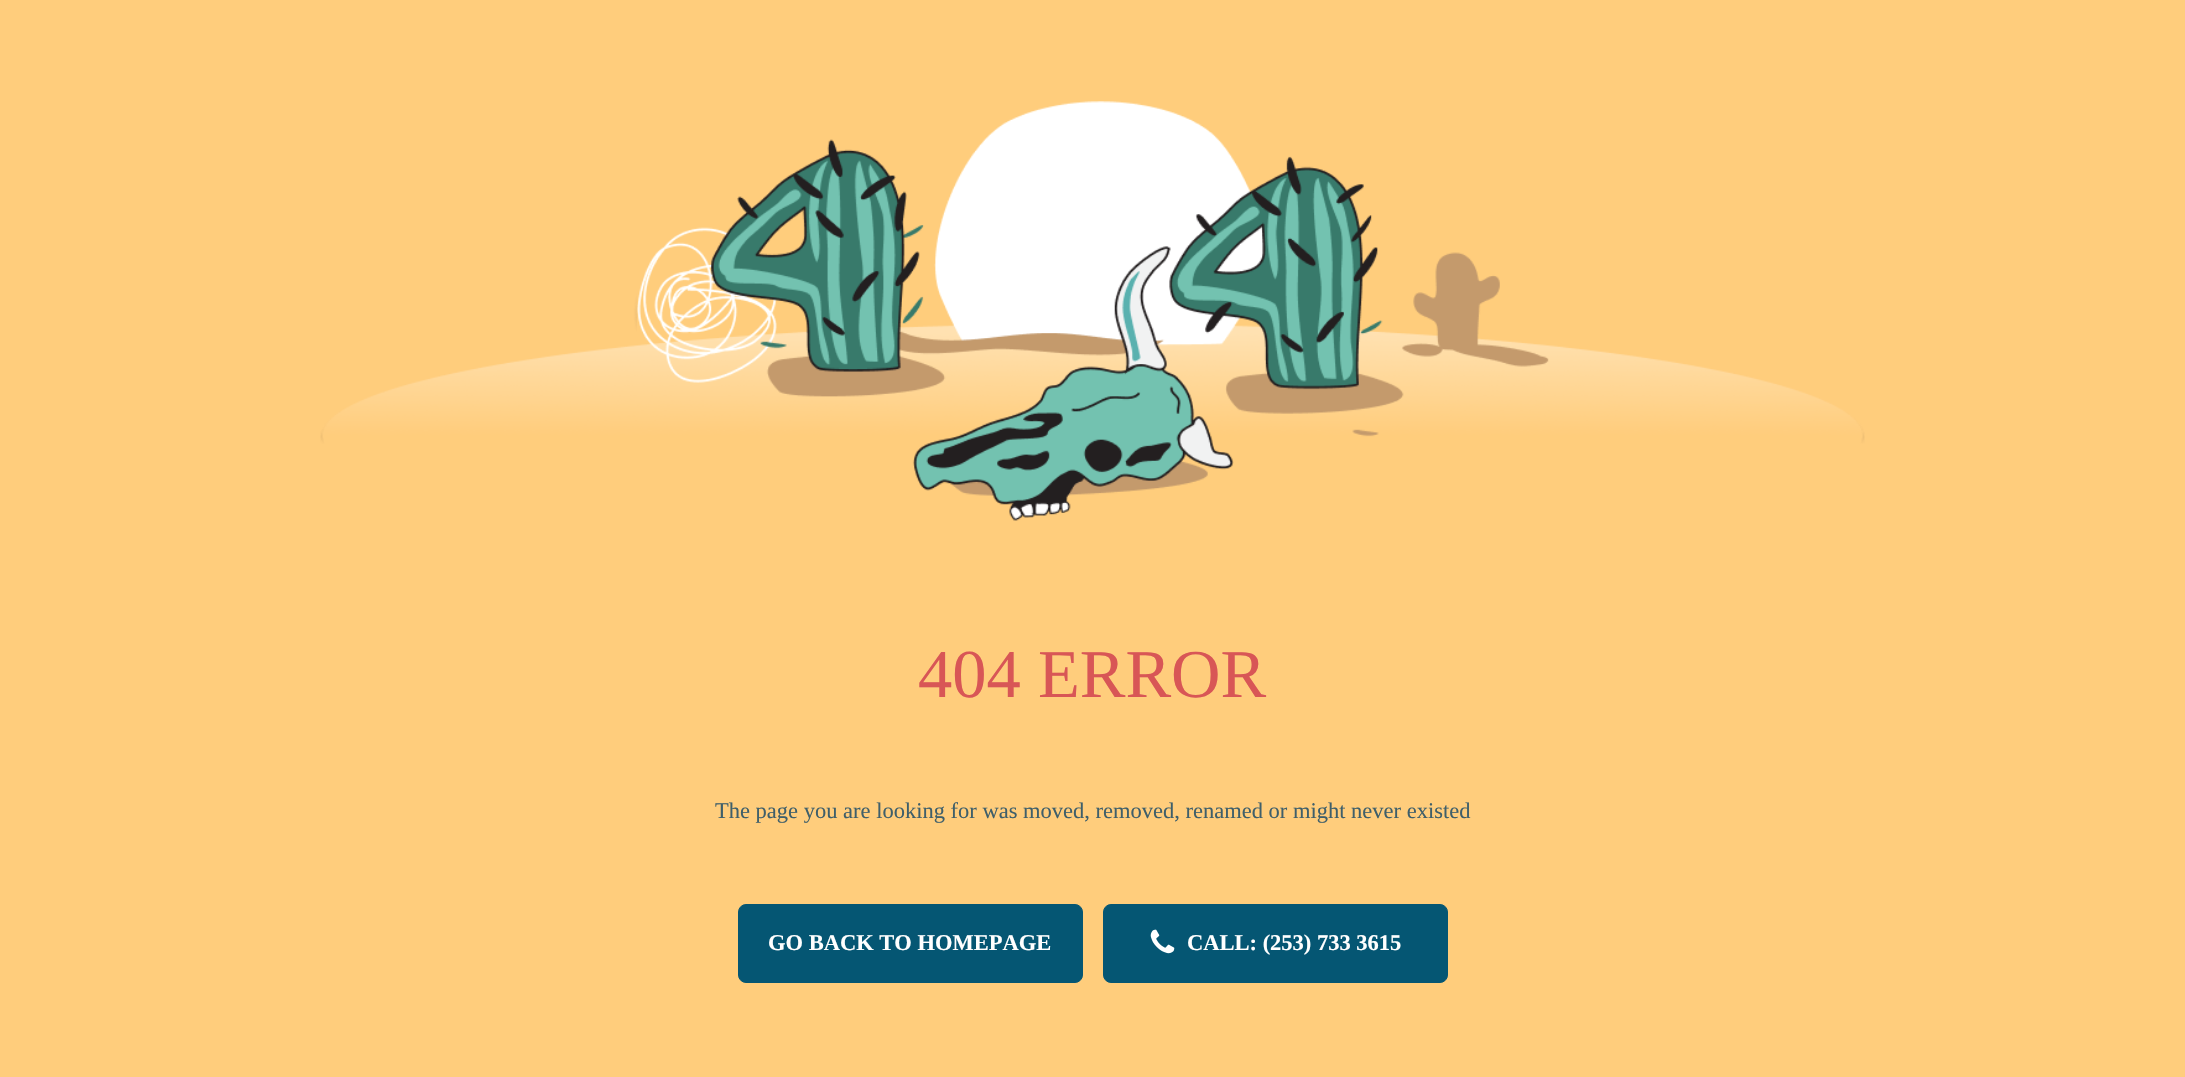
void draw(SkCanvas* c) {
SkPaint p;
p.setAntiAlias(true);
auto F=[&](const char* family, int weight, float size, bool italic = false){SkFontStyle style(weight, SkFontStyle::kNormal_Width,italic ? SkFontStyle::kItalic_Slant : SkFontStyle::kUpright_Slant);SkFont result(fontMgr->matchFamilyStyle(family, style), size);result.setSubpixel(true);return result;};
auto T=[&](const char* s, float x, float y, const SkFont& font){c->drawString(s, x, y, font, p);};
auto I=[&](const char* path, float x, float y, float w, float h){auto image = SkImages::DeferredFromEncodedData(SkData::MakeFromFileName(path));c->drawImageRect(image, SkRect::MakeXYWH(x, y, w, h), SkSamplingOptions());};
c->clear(0xffffcd7c);
I("1.png",320,101,1545,420);
auto f1 = F("Liberation Serif",400,68.5);
p.setColor(0xffd85656);
T("404 ERROR",918,697,f1);
auto f2 = F("Liberation Serif",400,22.5);
p.setColor(0xff3f5f6a);
T("The page you are looking for was moved, removed, renamed or might never existed",715,818,f2);
p.setColor(0xff055673);
c->drawRoundRect(SkRect::MakeXYWH(738.5,904.5,344,78),7.5,7.5,p);
p.setStroke(true);
p.setStrokeWidth(1);
c->drawRoundRect(SkRect::MakeXYWH(738.5,904.5,344,78),7.5,7.5,p);
auto f3 = F("Liberation Serif",700,22.5);
p.setStroke(false);
p.setColor(0xffffffff);
T("GO BACK TO HOMEPAGE",768,950,f3);
p.setColor(0xff055673);
c->drawRoundRect(SkRect::MakeXYWH(1103.5,904.5,344,78),7.5,7.5,p);
p.setStroke(true);
c->drawRoundRect(SkRect::MakeXYWH(1103.5,904.5,344,78),7.5,7.5,p);
I("2.png",1150,929,25,25);
p.setStroke(false);
p.setColor(0xffffffff);
T("CALL: (253) 733 3615",1187,950,f3);
}
